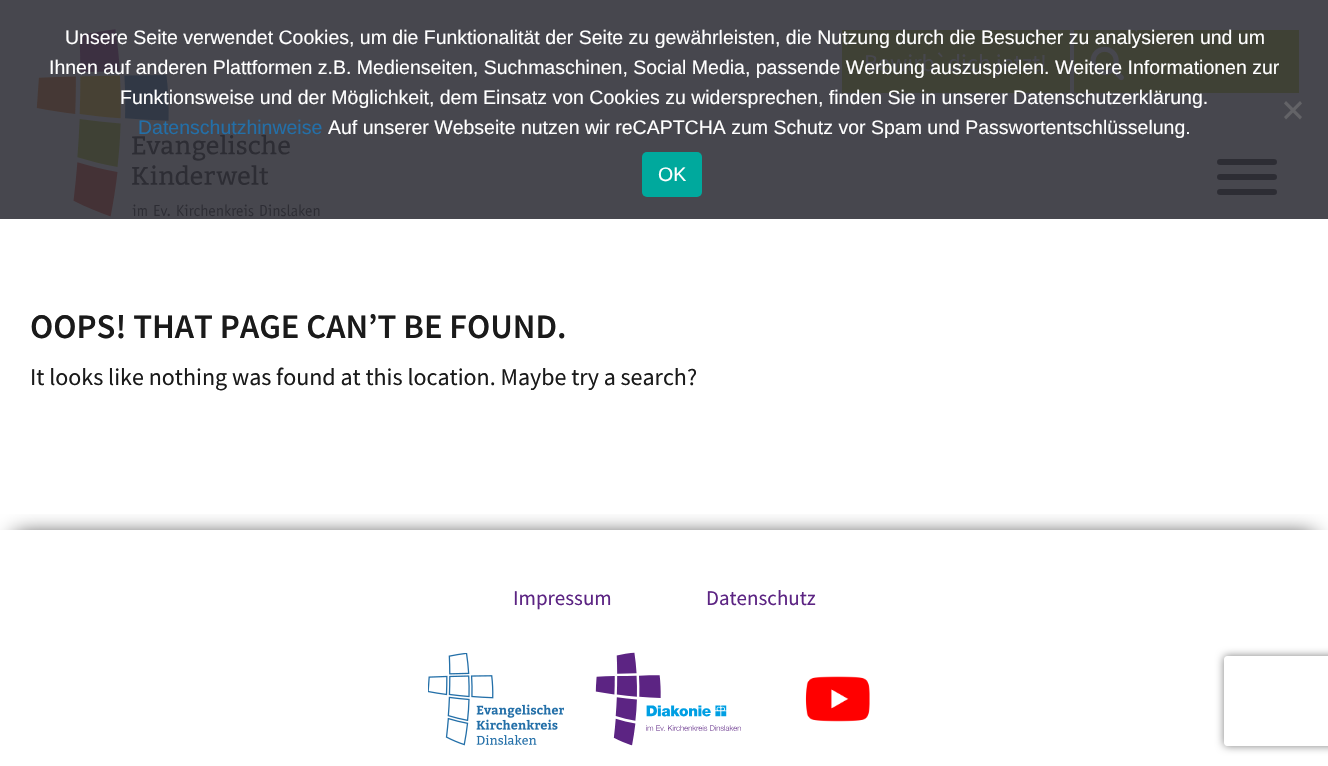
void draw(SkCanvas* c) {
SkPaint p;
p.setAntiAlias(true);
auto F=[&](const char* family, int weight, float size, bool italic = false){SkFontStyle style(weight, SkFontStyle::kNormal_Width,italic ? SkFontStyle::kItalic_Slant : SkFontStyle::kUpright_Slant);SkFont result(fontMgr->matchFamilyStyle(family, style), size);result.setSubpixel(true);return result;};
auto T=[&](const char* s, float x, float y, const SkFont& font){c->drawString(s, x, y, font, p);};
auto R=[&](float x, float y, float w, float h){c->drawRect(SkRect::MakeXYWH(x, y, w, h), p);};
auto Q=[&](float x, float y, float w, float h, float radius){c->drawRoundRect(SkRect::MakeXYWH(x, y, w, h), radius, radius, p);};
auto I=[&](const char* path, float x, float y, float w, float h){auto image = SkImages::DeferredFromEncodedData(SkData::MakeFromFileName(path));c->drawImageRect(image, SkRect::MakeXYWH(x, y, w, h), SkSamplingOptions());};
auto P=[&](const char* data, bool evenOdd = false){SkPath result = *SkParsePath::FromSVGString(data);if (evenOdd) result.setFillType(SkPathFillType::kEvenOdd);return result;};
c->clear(0xffffffff);
p.setColor(0xff47474e);
R(0,0,1328,219);
I("1.png",36,29,284,188);
p.setColor(0xff3f4135);
R(842,30,228,63);
c->drawPath(P("M1074 30h60c1.5 0 3 1.5 3 3v57c0 1.5-1.5 3-3 3h-60z"),p);
I("2.png",1090,46,34,35);
R(1137,30,162,63);
auto f1 = F("Liberation Sans",400,19.5);
p.setColor(0xffffffff);
T("Unsere Seite verwendet Cookies, um die Funktionalität der Seite zu gewährleisten, die Nutzung durch die Besucher zu analysieren und um",65,44,f1);
auto f2 = F("Source Sans Pro",400,24);
p.setColor(0xff47474e);
T("Bewirb`dich jetzt!",864,71,f2);
p.setColor(0xffffffff);
T("Ihnen auf anderen Plattformen z.B. Medienseiten, Suchmaschinen, Social Media, passende Werbung auszuspielen. Weitere Informationen zur",49,74,f1);
T("Funktionsweise und der Möglichkeit, dem Einsatz von Cookies zu widersprechen, finden Sie in unserer Datenschutzerklärung.",120,104,f1);
p.setColor(0xff236fa8);
T("Datenschutzhinweise",138,134,f1);
p.setColor(0xffffffff);
T("Auf unserer Webseite nutzen wir reCAPTCHA zum Schutz vor Spam und Passwortentschlüsselung.",328,134,f1);
p.setColor(0xff636367);
c->drawPath(P("M1300 101l2 2.5l-16 16l-2-2.5z"),p);
c->drawPath(P("M1284 103.5l2-2.5l16 16l-2 2.5z"),p);
p.setColor(0xff00a99d);
Q(642,152,60,45,5);
p.setColor(0xffffffff);
T("OK",658,181,f1);
p.setColor(0xff2d2d34);
Q(1217,189,60,6,3);
Q(1217,159,60,6,3);
Q(1217,174,60,6,3);
auto f3 = F("Source Sans Pro",600,34.5);
p.setColor(0xff1a1a1a);
T("OOPS! THAT PAGE CAN’T BE FOUND.",30,338,f3);
T("It looks like nothing was found at this location. Maybe try a search?",30,385,f2);
c->save();
c->clipRect(SkRect::MakeXYWH(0,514,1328,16));
p.setColor(0xff000000);
p.setMaskFilter(SkMaskFilter::MakeBlur(kNormal_SkBlurStyle, 11));
c->drawRect(SkRect::MakeXYWH(15,537,1299,207),p);
p.setMaskFilter(nullptr);
c->restore();
auto f4 = F("Source Sans Pro",400,21);
p.setColor(0xff5c2483);
T("Impressum",513,605,f4);
T("Datenschutz",706,605,f4);
I("3.png",428,653,136,93);
I("4.png",595,652,146,94);
I("5.png",805,676,65,46);
c->save();
c->clipPath(P("M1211 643h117v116h-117zm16 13h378c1.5 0 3 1.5 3 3v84c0 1.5-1.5 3-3 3h-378c-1.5 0-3-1.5-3-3v-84c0-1.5 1.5-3 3-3z",true),true);
p.setColor(0xff808080);
p.setMaskFilter(SkMaskFilter::MakeBlur(kNormal_SkBlurStyle, 4));
c->drawRoundRect(SkRect::MakeXYWH(1224,656,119,90),3,3,p);
p.setMaskFilter(nullptr);
c->restore();
}
